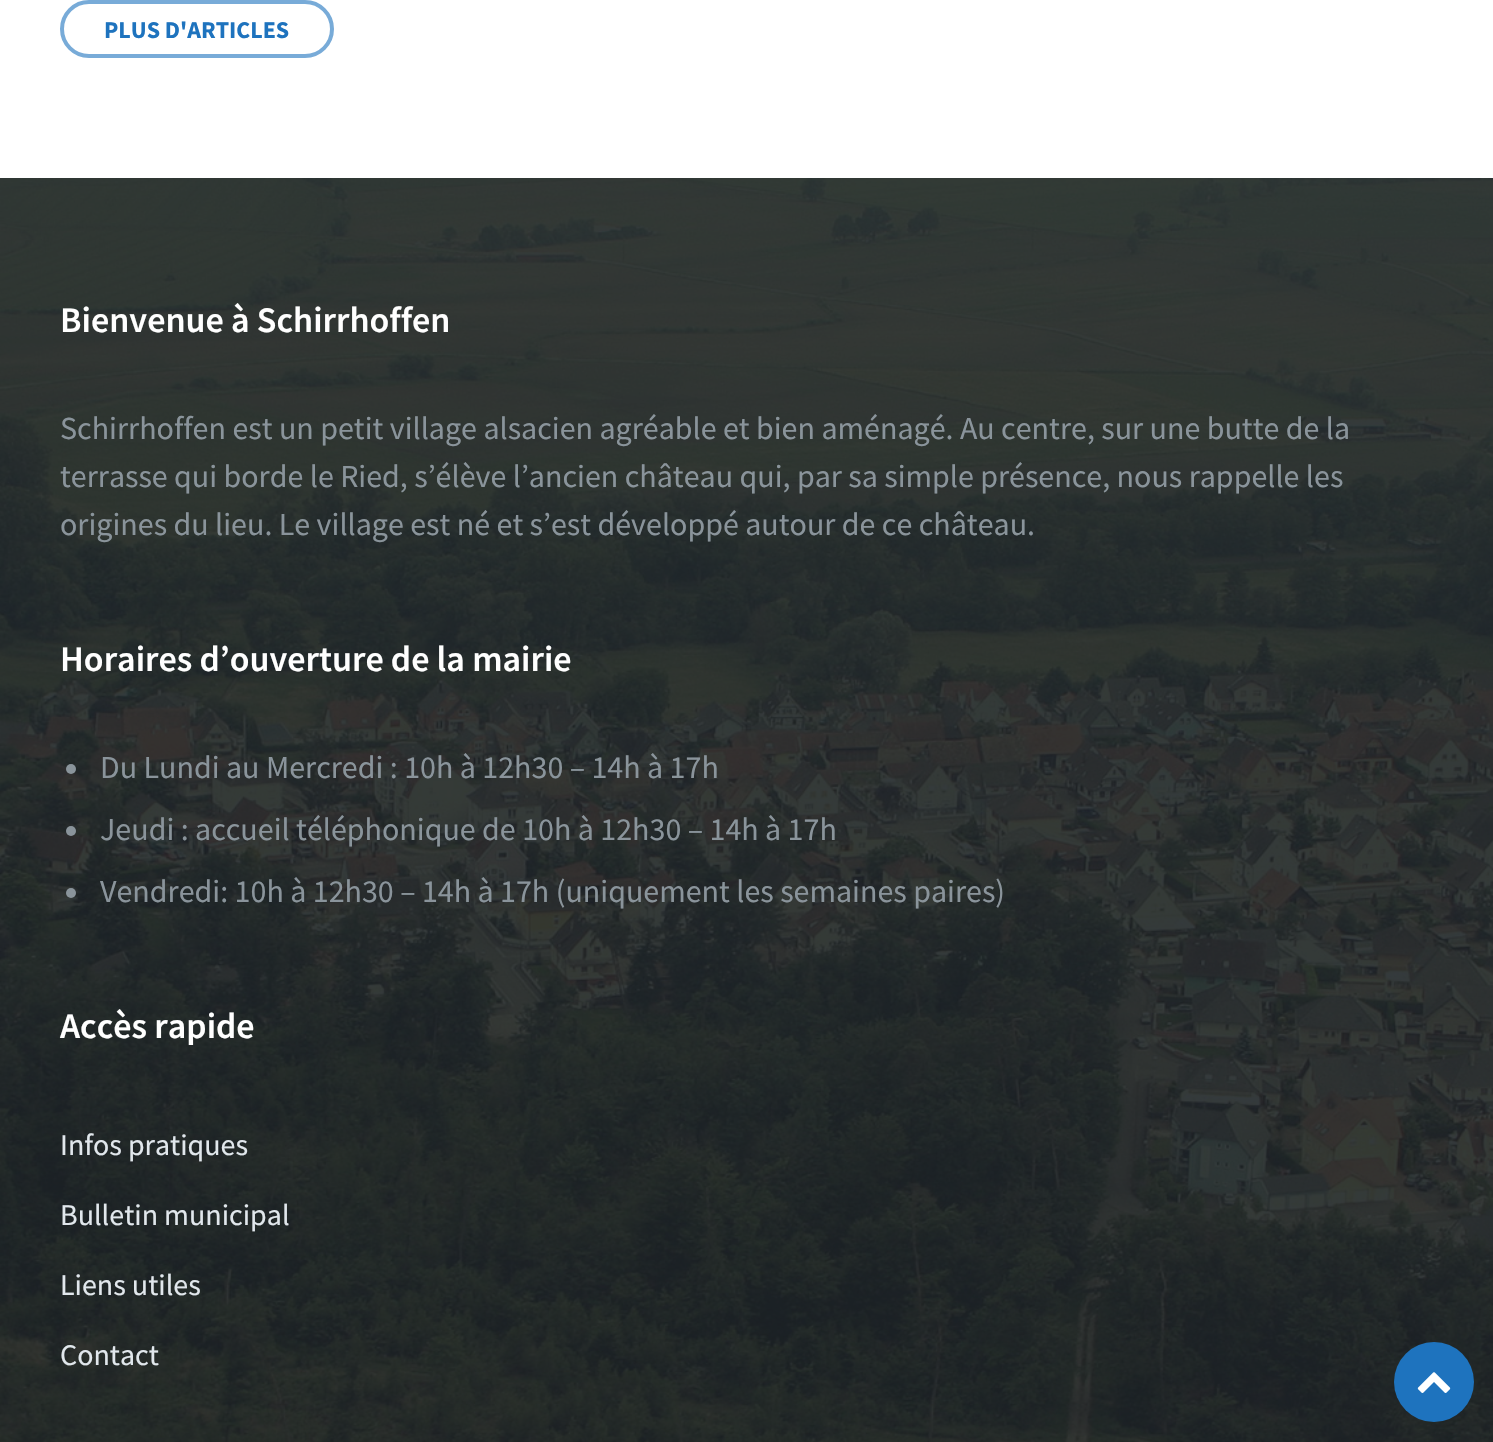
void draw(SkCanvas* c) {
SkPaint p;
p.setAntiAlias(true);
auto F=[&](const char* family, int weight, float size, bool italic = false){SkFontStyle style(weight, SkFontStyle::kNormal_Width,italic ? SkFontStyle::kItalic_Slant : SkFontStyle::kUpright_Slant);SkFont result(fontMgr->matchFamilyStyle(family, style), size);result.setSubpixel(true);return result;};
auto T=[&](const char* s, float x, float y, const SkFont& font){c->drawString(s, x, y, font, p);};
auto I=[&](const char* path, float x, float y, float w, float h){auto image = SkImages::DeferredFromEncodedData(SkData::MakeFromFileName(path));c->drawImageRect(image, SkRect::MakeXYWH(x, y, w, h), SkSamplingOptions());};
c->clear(0xffffffff);
p.setStroke(true);
p.setStrokeWidth(4);
p.setColor(0xff78abd8);
c->drawRoundRect(SkRect::MakeXYWH(62,2,270,54),27,27,p);
auto f1 = F("Source Sans Pro",700,24);
p.setStroke(false);
p.setColor(0xff1e73be);
T("PLUS D'ARTICLES",104,38,f1);
I("1.png",0,178,1493,1264);
auto f2 = F("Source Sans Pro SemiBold",600,36);
p.setColor(0xffffffff);
T("Bienvenue à Schirrhoffen",60,332,f2);
auto f3 = F("Source Sans Pro",400,32);
p.setColor(0xff8a949b);
T("Schirrhoffen est un petit village alsacien agréable et bien aménagé. Au centre, sur une butte de la",60,439,f3);
T("terrasse qui borde le Ried, s’élève l’ancien château qui, par sa simple présence, nous rappelle les",60,487,f3);
T("origines du lieu. Le village est né et s’est développé autour de ce château.",60,535,f3);
p.setColor(0xffffffff);
T("Horaires d’ouverture de la mairie",60,671,f2);
p.setColor(0xff8a949b);
c->drawCircle(71,769,5,p);
T("Du Lundi au Mercredi : 10h à 12h30 – 14h à 17h",100,778,f3);
c->drawCircle(71,831,5,p);
T("Jeudi : accueil téléphonique de 10h à 12h30 – 14h à 17h",100,840,f3);
c->drawCircle(71,893,5,p);
T("Vendredi: 10h à 12h30 – 14h à 17h (uniquement les semaines paires)",100,902,f3);
p.setColor(0xffffffff);
T("Accès rapide",60,1038,f2);
auto f4 = F("Source Sans Pro",400,30);
p.setColor(0xffe1e7ec);
T("Infos pratiques",60,1155,f4);
T("Bulletin municipal",60,1225,f4);
T("Liens utiles",60,1295,f4);
T("Contact",60,1365,f4);
p.setColor(0xff1e73be);
c->drawCircle(1434,1382,40,p);
I("2.png",1417,1372,34,21);
}
